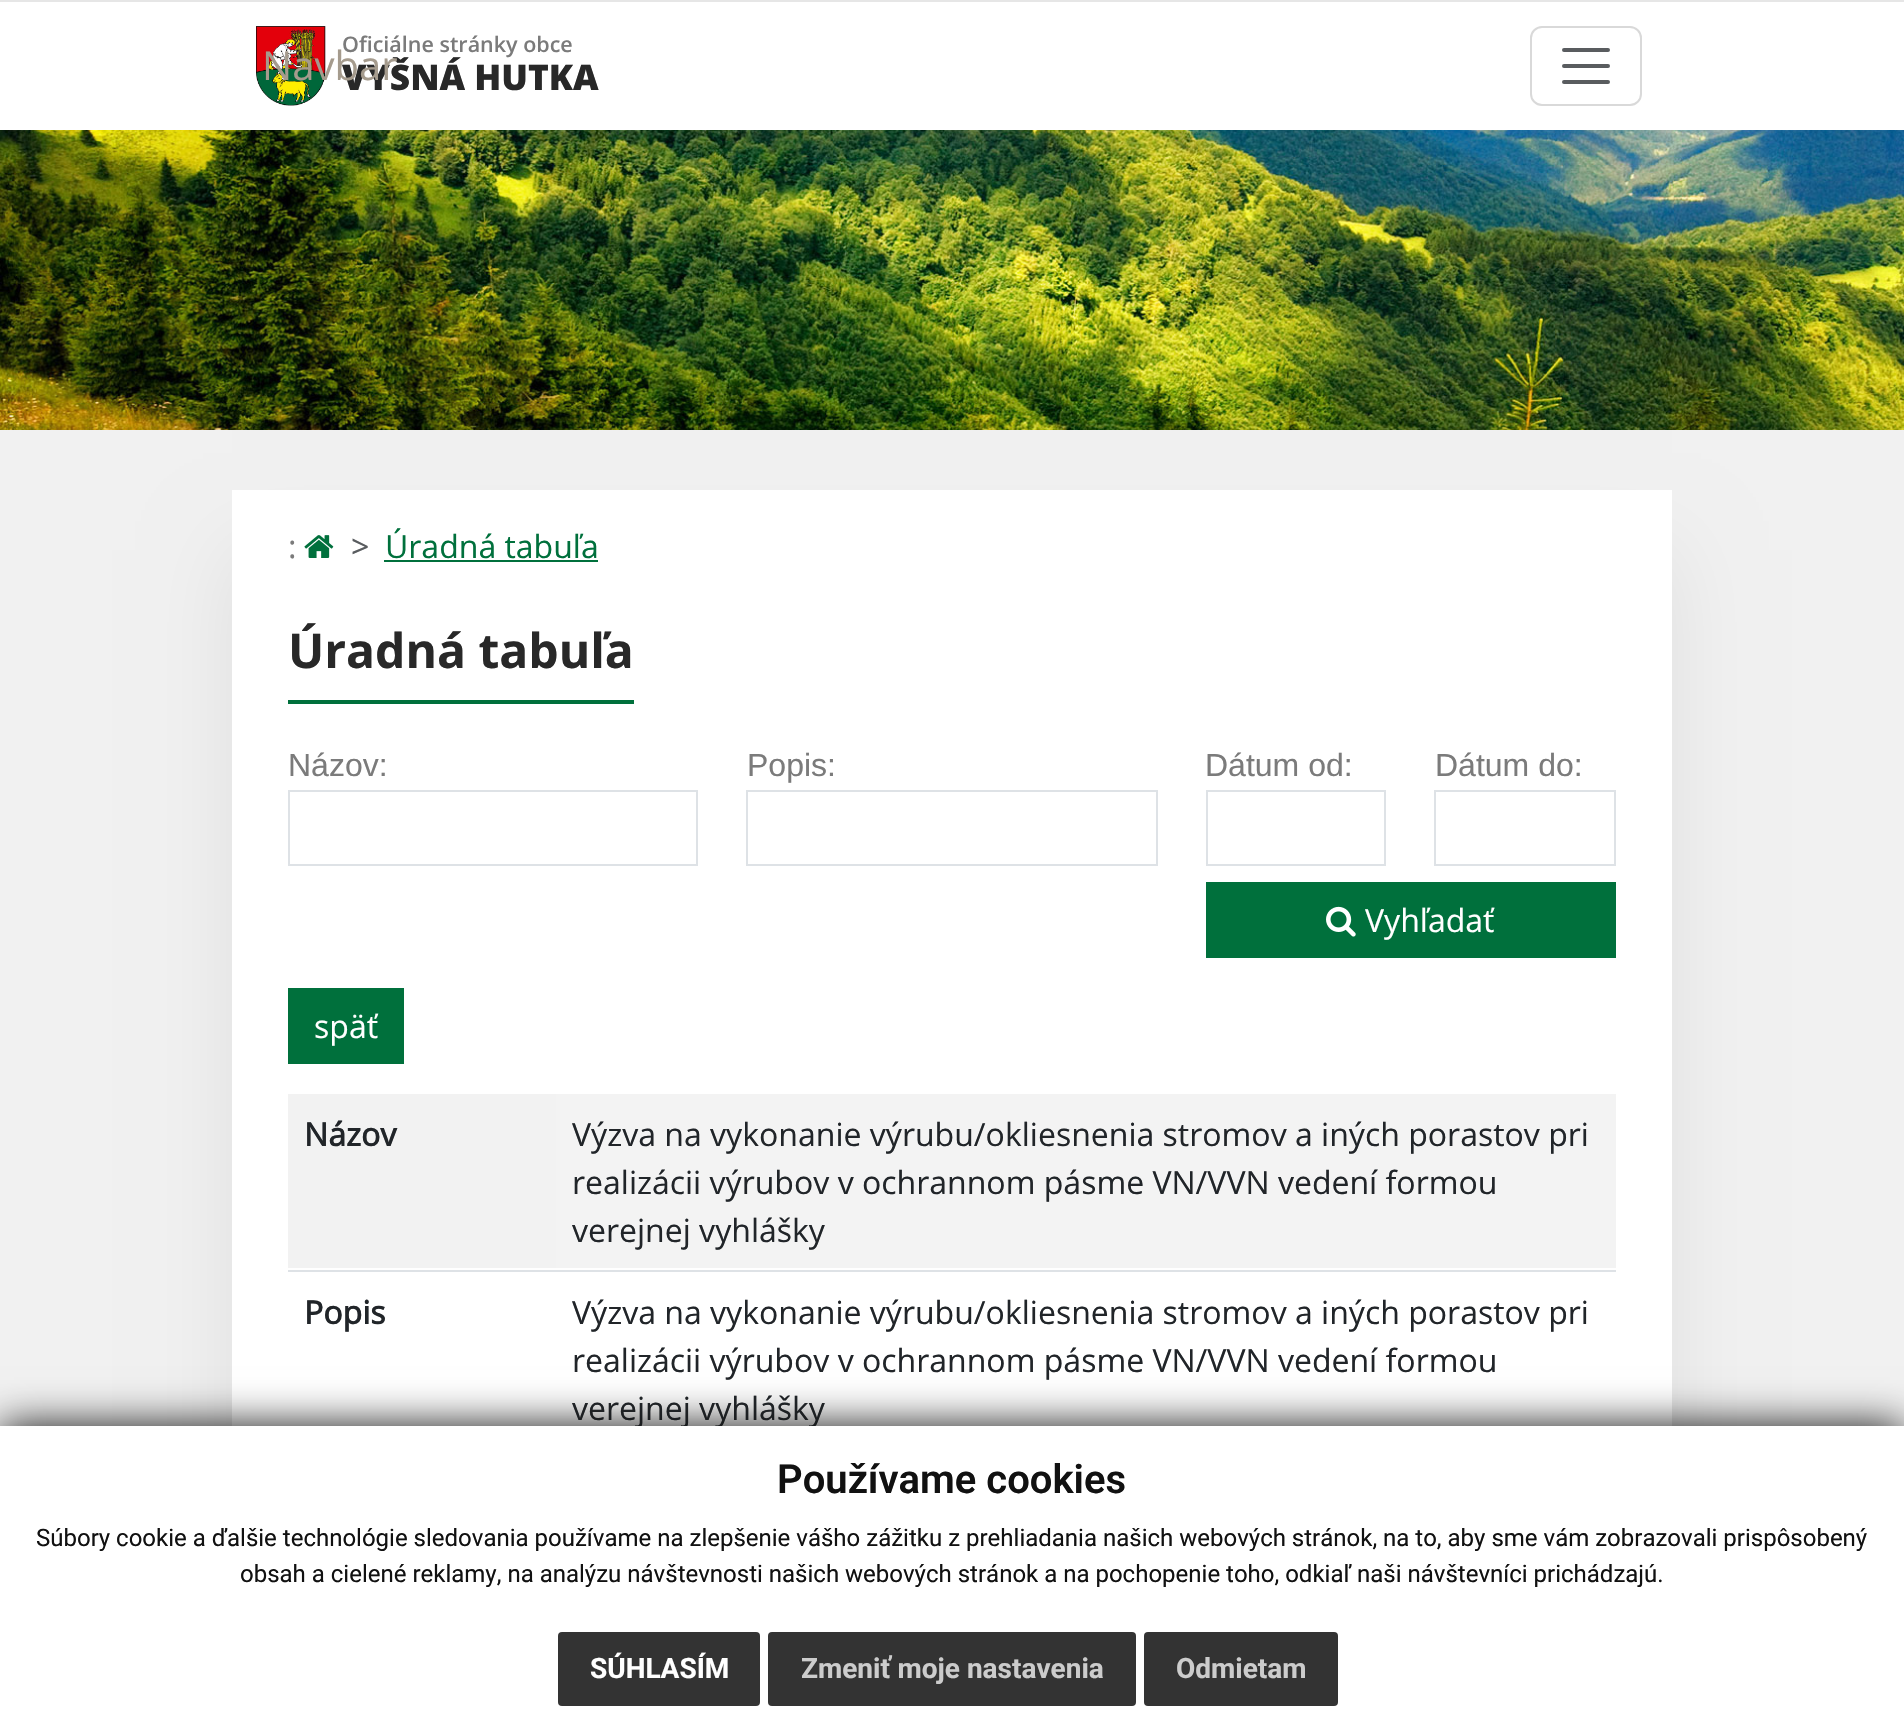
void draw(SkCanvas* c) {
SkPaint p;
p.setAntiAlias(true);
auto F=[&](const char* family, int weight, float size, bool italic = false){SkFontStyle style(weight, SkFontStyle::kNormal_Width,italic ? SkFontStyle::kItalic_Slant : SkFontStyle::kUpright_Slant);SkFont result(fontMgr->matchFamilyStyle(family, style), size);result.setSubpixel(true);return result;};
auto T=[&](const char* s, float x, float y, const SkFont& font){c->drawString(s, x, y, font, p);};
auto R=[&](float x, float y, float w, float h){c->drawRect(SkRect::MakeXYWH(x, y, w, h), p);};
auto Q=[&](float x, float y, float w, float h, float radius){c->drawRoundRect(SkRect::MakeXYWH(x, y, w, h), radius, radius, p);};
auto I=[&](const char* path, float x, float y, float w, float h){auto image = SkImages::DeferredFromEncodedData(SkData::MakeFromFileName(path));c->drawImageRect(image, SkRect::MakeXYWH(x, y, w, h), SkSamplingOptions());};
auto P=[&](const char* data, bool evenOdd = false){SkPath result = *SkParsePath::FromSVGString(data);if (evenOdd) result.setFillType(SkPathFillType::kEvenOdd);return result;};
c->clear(0xfff1f1f1);
p.setColor(0xffffffff);
R(0,2,1904,128);
p.setColor(0xffe6e6e6);
R(0,0,1904,2);
I("1.png",256,26,70,80);
auto f1 = F("Open Sans",800,35.25);
p.setColor(0xff282828);
T("VYŠNÁ HUTKA",342,90,f1);
auto f2 = F("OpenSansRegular",400,40);
p.setColor(0xffa59b8d);
T("Navbar",262,80,f2);
p.setStroke(true);
p.setStrokeWidth(2);
p.setColor(0xffd9d9d9);
c->drawRoundRect(SkRect::MakeXYWH(1531,27,110,78),11,11,p);
p.setStrokeWidth(4);
p.setStrokeCap(SkPaint::kRound_Cap);
p.setColor(0xff595c5f);
c->drawPath(P("M1564 50h44m-44 16h44m-44 16h44"),p);
auto f3 = F("Open Sans",600,21.5);
p.setStroke(false);
p.setColor(0xff7b7b7b);
T("Oficiálne stránky obce",342,52,f3);
I("2.png",0,130,1904,300);
p.setColor(0x12000000);
p.setMaskFilter(SkMaskFilter::MakeBlur(kNormal_SkBlurStyle, 40));
c->drawRect(SkRect::MakeXYWH(232,550,1440,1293),p);
p.setMaskFilter(nullptr);
p.setColor(0xffffffff);
R(232,490,1440,936);
auto f4 = F("OpenSansRegular",400,32);
p.setColor(0xff7b7b7b);
T(":",288,558,f4);
I("3.png",304,535,30,23);
p.setColor(0xff595c5f);
T(">",351,558,f4);
p.setColor(0xff00703c);
T("Úradná tabuľa",385,558,f4);
R(384,560,214,2);
R(288,700,346,4);
auto f5 = F("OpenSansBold",700,48);
p.setColor(0xff282828);
T("Úradná tabuľa",288,668,f5);
auto f6 = F("Liberation Sans",400,32);
p.setColor(0xff7b7b7b);
T("Názov:",288,776,f6);
p.setStroke(true);
p.setStrokeWidth(2);
p.setStrokeCap(SkPaint::kButt_Cap);
p.setColor(0xffdee2e6);
c->drawRect(SkRect::MakeXYWH(289,791,408,74),p);
p.setStroke(false);
p.setColor(0xff7b7b7b);
T("Popis:",747,776,f6);
p.setStroke(true);
p.setColor(0xffdee2e6);
c->drawRect(SkRect::MakeXYWH(747,791,410,74),p);
p.setStroke(false);
p.setColor(0xff7b7b7b);
T("Dátum od:",1205,776,f6);
p.setStroke(true);
p.setColor(0xffdee2e6);
c->drawRect(SkRect::MakeXYWH(1207,791,178,74),p);
p.setStroke(false);
p.setColor(0xff7b7b7b);
T("Dátum do:",1435,776,f6);
p.setStroke(true);
p.setColor(0xffdee2e6);
c->drawRect(SkRect::MakeXYWH(1435,791,180,74),p);
p.setStroke(false);
p.setColor(0xff00703c);
R(1206,882,410,76);
I("4.png",1326,906,30,31);
p.setColor(0xffffffff);
T("Vyhľadať",1365,932,f4);
p.setColor(0xff00703c);
R(288,988,116,76);
p.setColor(0xffffffff);
T("späť",314,1038,f4);
p.setColor(0xfff2f2f2);
R(288,1094,268,174);
auto f7 = F("OpenSansRegular",700,32);
p.setColor(0xff212529);
T("Názov",304,1146,f7);
p.setColor(0xfff3f3f3);
R(556,1094,1060,174);
p.setColor(0xffdee2e6);
R(288,1270,1328,2);
p.setColor(0xff212529);
T("Výzva na vykonanie výrubu/okliesnenia stromov a iných porastov pri",572,1146,f4);
T("realizácii výrubov v ochrannom pásme VN/VVN vedení formou",572,1194,f4);
T("verejnej vyhlášky",572,1242,f4);
T("Popis",304,1324,f7);
T("Výzva na vykonanie výrubu/okliesnenia stromov a iných porastov pri",572,1324,f4);
T("realizácii výrubov v ochrannom pásme VN/VVN vedení formou",572,1372,f4);
T("verejnej vyhlášky",572,1420,f4);
p.setColor(0xff111111);
p.setMaskFilter(SkMaskFilter::MakeBlur(kNormal_SkBlurStyle, 20));
c->drawRect(SkRect::MakeXYWH(0,1426,1904,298),p);
p.setMaskFilter(nullptr);
p.setColor(0xffffffff);
R(0,1426,1904,297);
auto f8 = F("Roboto",600,40);
p.setColor(0xff111111);
T("Používame cookies",777,1493,f8);
auto f9 = F("Roboto",400,24);
T("Súbory cookie a ďalšie technológie sledovania používame na zlepšenie vášho zážitku z prehliadania našich webových stránok, na to, aby sme vám zobrazovali prispôsobený",36,1546,f9);
T("obsah a cielené reklamy, na analýzu návštevnosti našich webových stránok a na pochopenie toho, odkiaľ naši návštevníci prichádzajú.",240,1582,f9);
p.setColor(0xff333333);
Q(558,1632,202,74,4);
auto f10 = F("Roboto",700,28);
p.setColor(0xffffffff);
T("SÚHLASÍM",590,1678,f10);
p.setColor(0xff333333);
Q(768,1632,368,74,4);
p.setColor(0xffcccccc);
T("Zmeniť moje nastavenia",801,1678,f10);
p.setColor(0xff333333);
Q(1144,1632,194,74,4);
p.setColor(0xffcccccc);
T("Odmietam",1176,1678,f10);
}
